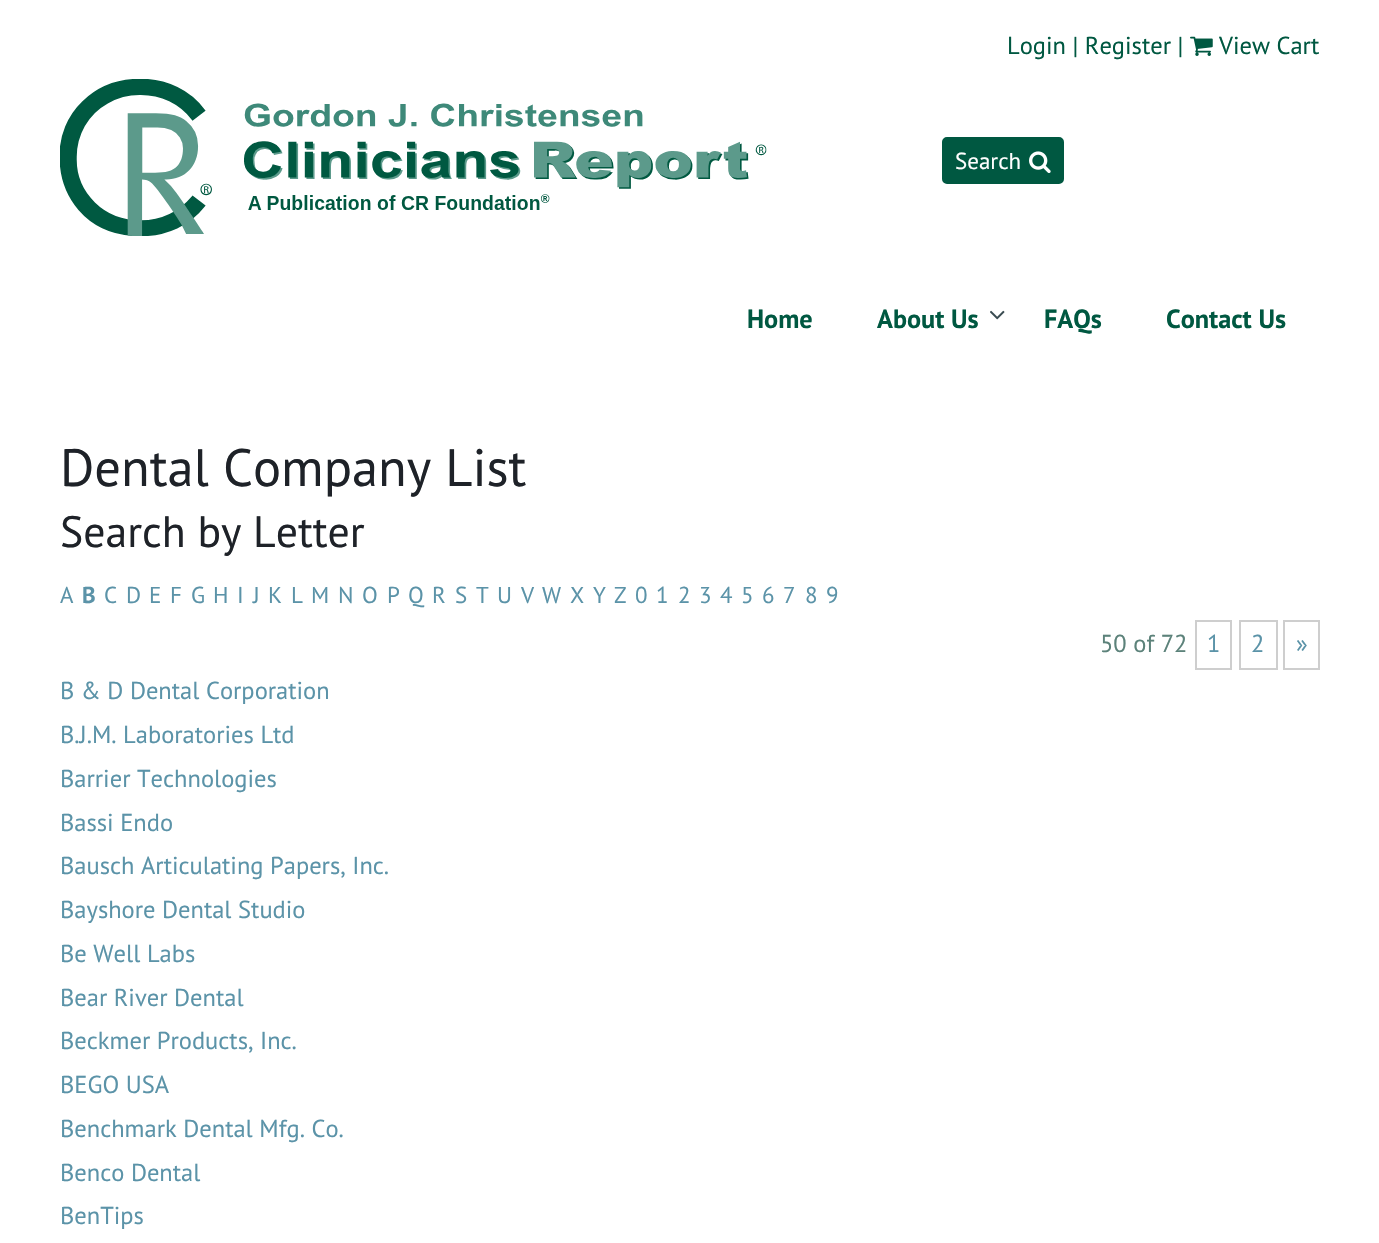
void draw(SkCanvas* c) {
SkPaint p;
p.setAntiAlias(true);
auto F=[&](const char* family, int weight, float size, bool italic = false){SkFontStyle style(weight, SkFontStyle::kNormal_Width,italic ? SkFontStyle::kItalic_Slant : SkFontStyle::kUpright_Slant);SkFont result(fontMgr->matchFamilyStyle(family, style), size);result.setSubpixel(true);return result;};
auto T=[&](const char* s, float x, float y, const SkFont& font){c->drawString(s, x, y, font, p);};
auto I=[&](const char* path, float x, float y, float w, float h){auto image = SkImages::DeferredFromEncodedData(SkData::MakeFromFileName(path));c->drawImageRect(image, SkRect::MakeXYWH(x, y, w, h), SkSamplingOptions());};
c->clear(0xffffffff);
auto f1 = F("PT Sans",400,24.5);
p.setColor(0xff005841);
T("Login | Register |",1007,54,f1);
I("1.png",1190,36,23,20);
T("View Cart",1219,54,f1);
I("2.png",60,79,707,157);
c->drawRoundRect(SkRect::MakeXYWH(943,138,120,45),4,4,p);
p.setStroke(true);
p.setStrokeWidth(2);
c->drawRoundRect(SkRect::MakeXYWH(943,138,120,45),4,4,p);
auto f2 = F("PT Sans",400,23);
p.setStroke(false);
p.setColor(0xffffffff);
T("Search",955,169,f2);
I("3.png",1029,151,22,22);
auto f3 = F("PT Sans",700,26.25);
p.setColor(0xff005841);
T("Home",747,328,f3);
T("About Us",877,328,f3);
I("4.png",990,310,15,10);
T("FAQs",1044,328,f3);
T("Contact Us",1166,328,f3);
auto f4 = F("PT Sans",400,52.5);
p.setColor(0xff1e2228);
T("Dental Company List",60,486,f4);
auto f5 = F("PT Sans",400,43.75);
T("Search by Letter",60,547,f5);
p.setColor(0xff5b93a8);
T("A",60,603,f2);
auto f6 = F("PT Sans",700,23);
T("B",82,603,f6);
T("C",104,603,f2);
T("D",126,603,f2);
T("E",149,603,f2);
T("F",170,603,f2);
T("G",191,603,f2);
T("H",213,603,f2);
T("I",237,603,f2);
T("J",253,603,f2);
T("K",268,603,f2);
T("L",291,603,f2);
T("M",311,603,f2);
T("N",338,603,f2);
T("O",362,603,f2);
T("P",387,603,f2);
T("Q",408,603,f2);
T("R",432,603,f2);
T("S",455,603,f2);
T("T",476,603,f2);
T("U",497,603,f2);
T("V",521,603,f2);
T("W",542,603,f2);
T("X",570,603,f2);
T("Y",593,603,f2);
T("Z",614,603,f2);
T("0",635,603,f2);
T("1",656,603,f2);
T("2",678,603,f2);
T("3",699,603,f2);
T("4",720,603,f2);
T("5",741,603,f2);
T("6",762,603,f2);
T("7",783,603,f2);
T("8",805,603,f2);
T("9",826,603,f2);
p.setColor(0xff5c827a);
T("50 of 72",1100,652,f1);
p.setStroke(true);
p.setColor(0xffcecece);
c->drawRect(SkRect::MakeXYWH(1196,621,35,48),p);
p.setStroke(false);
p.setColor(0xff5b93a8);
T("1",1207,652,f1);
p.setStroke(true);
p.setColor(0xffcecece);
c->drawRect(SkRect::MakeXYWH(1240,621,37,48),p);
p.setStroke(false);
p.setColor(0xff5b93a8);
T("2",1251,652,f1);
p.setStroke(true);
p.setColor(0xffcecece);
c->drawRect(SkRect::MakeXYWH(1284,621,35,48),p);
p.setStroke(false);
p.setColor(0xff5b93a8);
T("»",1296,652,f1);
T("B & D Dental Corporation",60,699,f1);
T("B.J.M. Laboratories Ltd",60,743,f1);
T("Barrier Technologies",60,787,f1);
T("Bassi Endo",60,831,f1);
T("Bausch Articulating Papers, Inc.",60,874,f1);
T("Bayshore Dental Studio",60,918,f1);
T("Be Well Labs",60,962,f1);
T("Bear River Dental",60,1006,f1);
T("Beckmer Products, Inc.",60,1049,f1);
T("BEGO USA",60,1093,f1);
T("Benchmark Dental Mfg. Co.",60,1137,f1);
T("Benco Dental",60,1181,f1);
T("BenTips",60,1224,f1);
}
